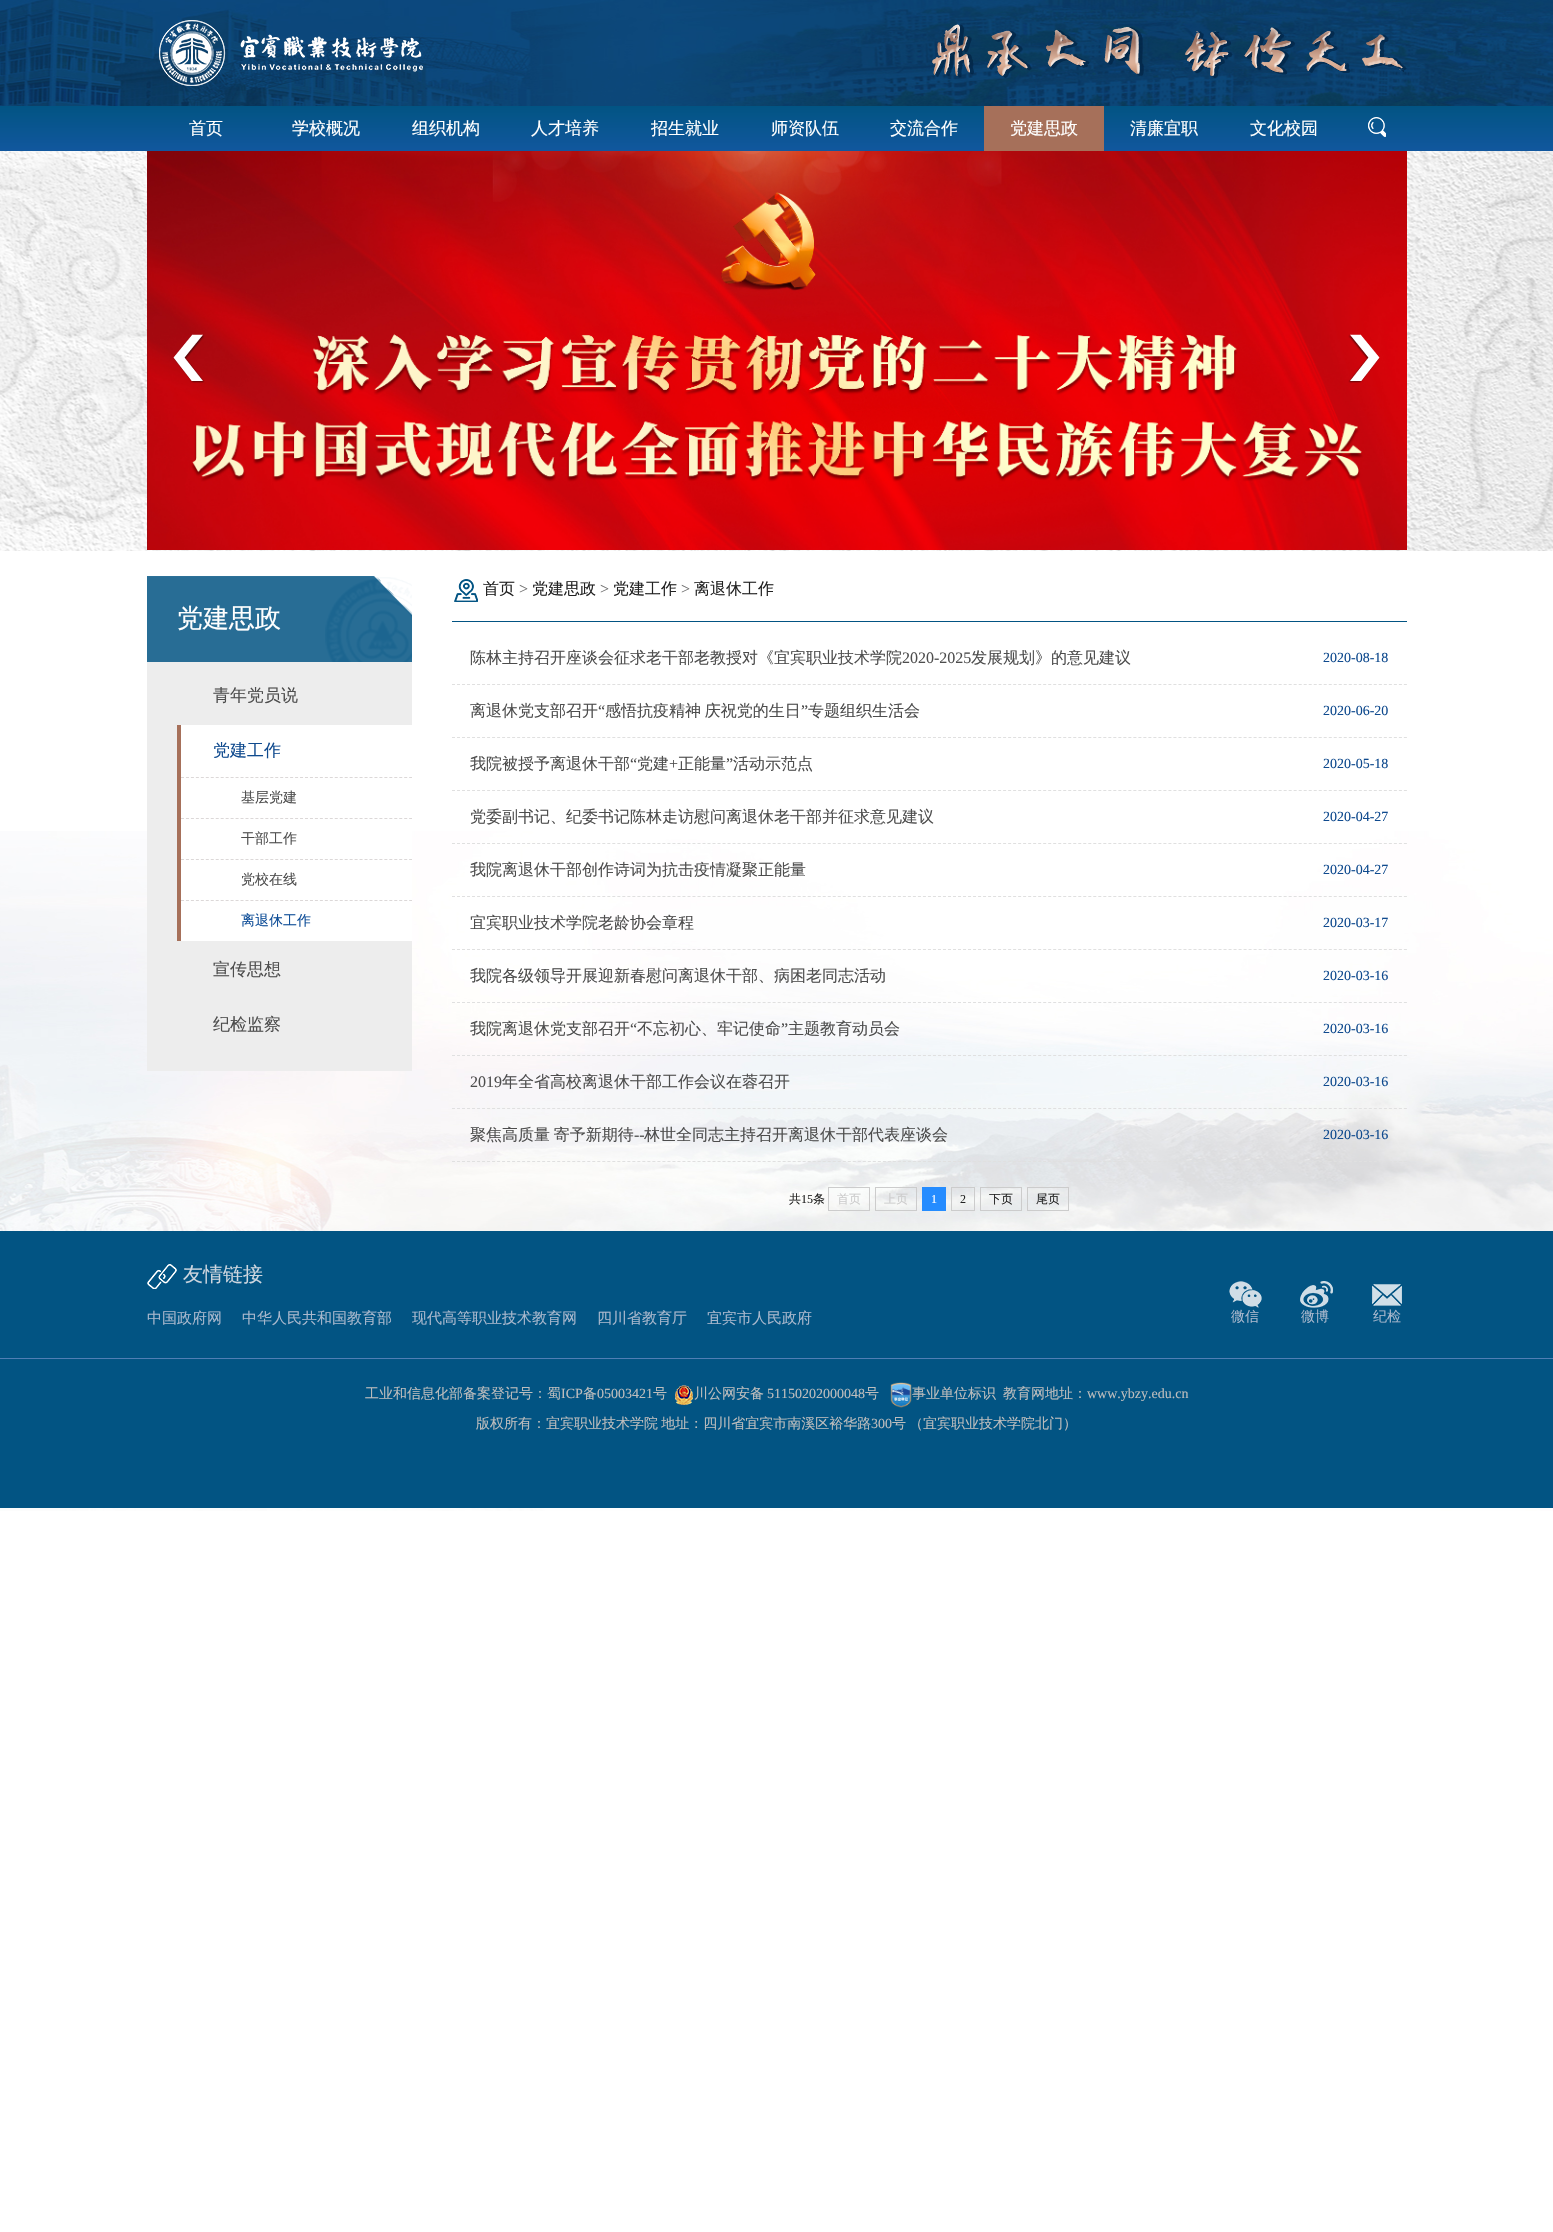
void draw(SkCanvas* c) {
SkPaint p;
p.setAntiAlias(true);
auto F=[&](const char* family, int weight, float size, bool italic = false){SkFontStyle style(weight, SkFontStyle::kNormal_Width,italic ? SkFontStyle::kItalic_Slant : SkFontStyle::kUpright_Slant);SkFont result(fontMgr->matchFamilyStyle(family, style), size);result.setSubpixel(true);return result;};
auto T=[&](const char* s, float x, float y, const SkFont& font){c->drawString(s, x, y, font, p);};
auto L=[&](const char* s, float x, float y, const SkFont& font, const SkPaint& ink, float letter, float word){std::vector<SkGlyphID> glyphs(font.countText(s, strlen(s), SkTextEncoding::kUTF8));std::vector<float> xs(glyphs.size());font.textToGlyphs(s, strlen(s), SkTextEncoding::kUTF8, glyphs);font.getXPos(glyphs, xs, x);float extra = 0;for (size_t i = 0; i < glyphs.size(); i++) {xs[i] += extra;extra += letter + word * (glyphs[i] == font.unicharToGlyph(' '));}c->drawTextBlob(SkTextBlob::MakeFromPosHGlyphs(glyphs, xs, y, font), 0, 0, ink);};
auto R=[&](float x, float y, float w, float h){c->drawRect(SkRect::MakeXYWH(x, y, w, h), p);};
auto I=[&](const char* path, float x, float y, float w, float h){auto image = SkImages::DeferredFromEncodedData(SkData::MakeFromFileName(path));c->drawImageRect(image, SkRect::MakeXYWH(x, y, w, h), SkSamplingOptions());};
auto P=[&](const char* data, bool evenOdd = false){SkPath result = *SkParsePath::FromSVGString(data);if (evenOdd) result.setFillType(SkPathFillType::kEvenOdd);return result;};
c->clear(0xffffffff);
I("1.png",0,831,1553,680);
I("2.png",0,0,1553,106);
I("3.png",159,20,264,66);
I("4.png",932,24,475,54);
{
const SkColor colors[] = {0xff025483,0xff11579e};
const float stops[] = {0,1};
const SkPoint ends[] = {{777,106}, {777,151}};
p.setShader(SkGradientShader::MakeLinear(ends, colors, stops, 2, SkTileMode::kClamp));
p.setAlpha(255);
}
R(0,106,1553,45);
auto f1 = F("WenQuanYi Zen Hei",500,17);
p.setShader(nullptr);
p.setColor(0xffffffff);
T("首页",189,134,f1);
T("学校概况",292,134,f1);
T("组织机构",412,134,f1);
T("人才培养",531,134,f1);
T("招生就业",651,134,f1);
T("师资队伍",771,134,f1);
T("交流合作",890,134,f1);
p.setColor(0xffa6705a);
R(984,106,120,45);
p.setColor(0xffffffff);
T("党建思政",1010,134,f1);
T("清廉宜职",1130,134,f1);
T("文化校园",1250,134,f1);
I("5.png",1368,117,18,20);
I("6.png",0,151,1553,400);
I("7.png",147,151,1260,399);
I("8.png",173,334,32,49);
I("9.png",1348,334,32,49);
I("10.png",147,576,265,86);
auto f2 = F("WenQuanYi Zen Hei",500,26);
T("党建思政",177,627,f2);
p.setColor(0xffededed);
R(147,662,265,409);
p.setColor(0xff4d4d4d);
T("青年党员说",213,701,f1);
p.setColor(0xffffffff);
R(181,725,231,216);
p.setColor(0xffa6705a);
R(177,725,4,216);
p.setColor(0xff0f4a8e);
T("党建工作",213,756,f1);
p.setStroke(true);
p.setStrokeWidth(1);
p.setColor(0xffdcd8d8);
p.setPathEffect(SkDashPathEffect::Make({{3,1.96f}}, 0));
c->drawPath(P("M181 777.5h231"),p);
p.setPathEffect(nullptr);
auto f3 = F("WenQuanYi Zen Hei",500,14);
p.setStroke(false);
p.setColor(0xff4d4d4d);
T("基层党建",241,802,f3);
p.setStroke(true);
p.setColor(0xffdcd8d8);
p.setPathEffect(SkDashPathEffect::Make({{3,1.96f}}, 0));
c->drawPath(P("M181 818.5h231"),p);
p.setPathEffect(nullptr);
p.setStroke(false);
p.setColor(0xff4d4d4d);
T("干部工作",241,843,f3);
p.setStroke(true);
p.setColor(0xffdcd8d8);
p.setPathEffect(SkDashPathEffect::Make({{3,1.96f}}, 0));
c->drawPath(P("M181 859.5h231"),p);
p.setPathEffect(nullptr);
p.setStroke(false);
p.setColor(0xff4d4d4d);
T("党校在线",241,884,f3);
p.setStroke(true);
p.setColor(0xffdcd8d8);
p.setPathEffect(SkDashPathEffect::Make({{3,1.96f}}, 0));
c->drawPath(P("M181 900.5h231"),p);
p.setPathEffect(nullptr);
p.setStroke(false);
p.setColor(0xff0f4e98);
T("离退休工作",241,925,f3);
p.setColor(0xff4d4d4d);
T("宣传思想",213,975,f1);
T("纪检监察",213,1030,f1);
p.setColor(0xff025483);
R(452,621,955,1);
I("11.png",454,579,24,23);
auto f4 = F("WenQuanYi Zen Hei",500,16);
p.setColor(0xff222222);
T("首页",483,594,f4);
auto f5 = F("Liberation Serif",400,16);
p.setColor(0xff727272);
T(">",519,594,f5);
p.setColor(0xff222222);
T("党建思政",532,594,f4);
p.setColor(0xff727272);
T(">",600,594,f5);
p.setColor(0xff222222);
T("党建工作",613,594,f4);
p.setColor(0xff727272);
T(">",681,594,f5);
p.setColor(0xff222222);
T("离退休工作",694,594,f4);
p.setStroke(true);
p.setColor(0xffe0e0e0);
p.setPathEffect(SkDashPathEffect::Make({{3,2.01f}}, 0));
c->drawPath(P("M452 684.5h955"),p);
p.setPathEffect(nullptr);
p.setStroke(false);
p.setColor(0xff4d4d4d);
T("陈林主持召开座谈会征求老干部老教授对《宜宾职业技术学院",470,663,f4);
T("2020-2025",902,663,f5);
T("发展规划》的意见建议",971,663,f4);
auto f6 = F("Liberation Serif",400,14);
p.setColor(0xff0f4a8e);
T("2020-08-18",1323,662,f6);
p.setStroke(true);
p.setColor(0xffe0e0e0);
p.setPathEffect(SkDashPathEffect::Make({{3,2.01f}}, 0));
c->drawPath(P("M452 737.5h955"),p);
p.setPathEffect(nullptr);
p.setStroke(false);
p.setColor(0xff4d4d4d);
T("离退休党支部召开",470,716,f4);
T("“",598,716,f5);
L("感悟抗疫精神 庆祝党的生日",605,716,f4,p,0,-1);
T("”",801,716,f5);
T("专题组织生活会",808,716,f4);
p.setColor(0xff0f4a8e);
T("2020-06-20",1323,715,f6);
p.setStroke(true);
p.setColor(0xffe0e0e0);
p.setPathEffect(SkDashPathEffect::Make({{3,2.01f}}, 0));
c->drawPath(P("M452 790.5h955"),p);
p.setPathEffect(nullptr);
p.setStroke(false);
p.setColor(0xff4d4d4d);
T("我院被授予离退休干部",470,769,f4);
T("“",630,769,f5);
T("党建",637,769,f4);
T("+",669,769,f5);
T("正能量",678,769,f4);
T("”",726,769,f5);
T("活动示范点",733,769,f4);
p.setColor(0xff0f4a8e);
T("2020-05-18",1323,768,f6);
p.setStroke(true);
p.setColor(0xffe0e0e0);
p.setPathEffect(SkDashPathEffect::Make({{3,2.01f}}, 0));
c->drawPath(P("M452 843.5h955"),p);
p.setPathEffect(nullptr);
p.setStroke(false);
p.setColor(0xff4d4d4d);
T("党委副书记、纪委书记陈林走访慰问离退休老干部并征求意见建议",470,822,f4);
p.setColor(0xff0f4a8e);
T("2020-04-27",1323,821,f6);
p.setStroke(true);
p.setColor(0xffe0e0e0);
p.setPathEffect(SkDashPathEffect::Make({{3,2.01f}}, 0));
c->drawPath(P("M452 896.5h955"),p);
p.setPathEffect(nullptr);
p.setStroke(false);
p.setColor(0xff4d4d4d);
T("我院离退休干部创作诗词为抗击疫情凝聚正能量",470,875,f4);
p.setColor(0xff0f4a8e);
T("2020-04-27",1323,874,f6);
p.setStroke(true);
p.setColor(0xffe0e0e0);
p.setPathEffect(SkDashPathEffect::Make({{3,2.01f}}, 0));
c->drawPath(P("M452 949.5h955"),p);
p.setPathEffect(nullptr);
p.setStroke(false);
p.setColor(0xff4d4d4d);
T("宜宾职业技术学院老龄协会章程",470,928,f4);
p.setColor(0xff0f4a8e);
T("2020-03-17",1323,927,f6);
p.setStroke(true);
p.setColor(0xffe0e0e0);
p.setPathEffect(SkDashPathEffect::Make({{3,2.01f}}, 0));
c->drawPath(P("M452 1002.5h955"),p);
p.setPathEffect(nullptr);
p.setStroke(false);
p.setColor(0xff4d4d4d);
T("我院各级领导开展迎新春慰问离退休干部、病困老同志活动",470,981,f4);
p.setColor(0xff0f4a8e);
T("2020-03-16",1323,980,f6);
p.setStroke(true);
p.setColor(0xffe0e0e0);
p.setPathEffect(SkDashPathEffect::Make({{3,2.01f}}, 0));
c->drawPath(P("M452 1055.5h955"),p);
p.setPathEffect(nullptr);
p.setStroke(false);
p.setColor(0xff4d4d4d);
T("我院离退休党支部召开",470,1034,f4);
T("“",630,1034,f5);
T("不忘初心、牢记使命",637,1034,f4);
T("”",781,1034,f5);
T("主题教育动员会",788,1034,f4);
p.setColor(0xff0f4a8e);
T("2020-03-16",1323,1033,f6);
p.setStroke(true);
p.setColor(0xffe0e0e0);
p.setPathEffect(SkDashPathEffect::Make({{3,2.01f}}, 0));
c->drawPath(P("M452 1108.5h955"),p);
p.setPathEffect(nullptr);
p.setStroke(false);
p.setColor(0xff4d4d4d);
T("2019",470,1087,f5);
T("年全省高校离退休干部工作会议在蓉召开",502,1087,f4);
p.setColor(0xff0f4a8e);
T("2020-03-16",1323,1086,f6);
p.setStroke(true);
p.setColor(0xffe0e0e0);
p.setPathEffect(SkDashPathEffect::Make({{3,2.01f}}, 0));
c->drawPath(P("M452 1161.5h955"),p);
p.setPathEffect(nullptr);
p.setStroke(false);
p.setColor(0xff4d4d4d);
L("聚焦高质量 寄予新期待",470,1140,f4,p,0,-1);
T("--",634,1140,f5);
T("林世全同志主持召开离退休干部代表座谈会",644,1140,f4);
p.setColor(0xff0f4a8e);
T("2020-03-16",1323,1139,f6);
auto f7 = F("WenQuanYi Zen Hei",500,12);
p.setColor(0xff222222);
T("共",789,1203,f7);
auto f8 = F("Liberation Serif",400,12);
T("15",801,1203,f8);
T("条",813,1203,f7);
p.setStroke(true);
p.setColor(0xffcccccc);
c->drawRect(SkRect::MakeXYWH(828.5,1187.5,41,23),p);
p.setStroke(false);
T("首页",837,1203,f7);
p.setStroke(true);
c->drawRect(SkRect::MakeXYWH(875.5,1187.5,41,23),p);
p.setStroke(false);
T("上页",884,1203,f7);
p.setColor(0xff258cff);
R(922,1187,24,24);
p.setColor(0xffffffff);
T("1",931,1203,f8);
p.setStroke(true);
p.setColor(0xffcccccc);
c->drawRect(SkRect::MakeXYWH(951.5,1187.5,23,23),p);
p.setStroke(false);
p.setColor(0xff222222);
T("2",960,1203,f8);
p.setStroke(true);
p.setColor(0xffcccccc);
c->drawRect(SkRect::MakeXYWH(980.5,1187.5,41,23),p);
p.setStroke(false);
p.setColor(0xff222222);
T("下页",989,1203,f7);
p.setStroke(true);
p.setColor(0xffcccccc);
c->drawRect(SkRect::MakeXYWH(1027.5,1187.5,41,23),p);
p.setStroke(false);
p.setColor(0xff222222);
T("尾页",1036,1203,f7);
p.setColor(0xff025483);
R(0,1231,1553,277);
I("12.png",147,1264,30,25);
auto f9 = F("WenQuanYi Zen Hei",500,20);
p.setColor(0xffced6df);
T("友情链接",183,1281,f9);
auto f10 = F("WenQuanYi Zen Hei",500,15);
p.setColor(0xffa9b8cd);
T("中国政府网",147,1323,f10);
T("中华人民共和国教育部",242,1323,f10);
T("现代高等职业技术教育网",412,1323,f10);
T("四川省教育厅",597,1323,f10);
T("宜宾市人民政府",707,1323,f10);
I("13.png",1229,1281,33,27);
T("微信",1231,1321,f3);
I("14.png",1300,1281,33,27);
T("微博",1301,1321,f3);
I("15.png",1372,1284,30,22);
T("纪检",1373,1321,f3);
p.setColor(0xff507eb4);
R(0,1358,1553,1);
p.setColor(0xffbdbdbd);
T("工业和信息化部备案登记号：蜀",365,1398,f3);
T("ICP",561,1398,f6);
T("备",583,1398,f3);
T("05003421",597,1398,f6);
T("号",653,1398,f3);
I("16.png",675,1385,18,20);
T("川公网安备",694,1398,f3);
T("51150202000048",767,1398,f6);
T("号",865,1398,f3);
I("17.png",890,1382,22,26);
T("事业单位标识",912,1398,f3);
T("教育网地址：",1003,1398,f3);
T("www.ybzy.edu.cn",1087,1398,f6);
L("版权所有：宜宾职业技术学院 地址：四川省宜宾市南溪区裕华路",476,1428,f3,p,0,-1);
T("300",871,1428,f6);
T("号",892,1428,f3);
T("（宜宾职业技术学院北门）",909,1428,f3);
}
